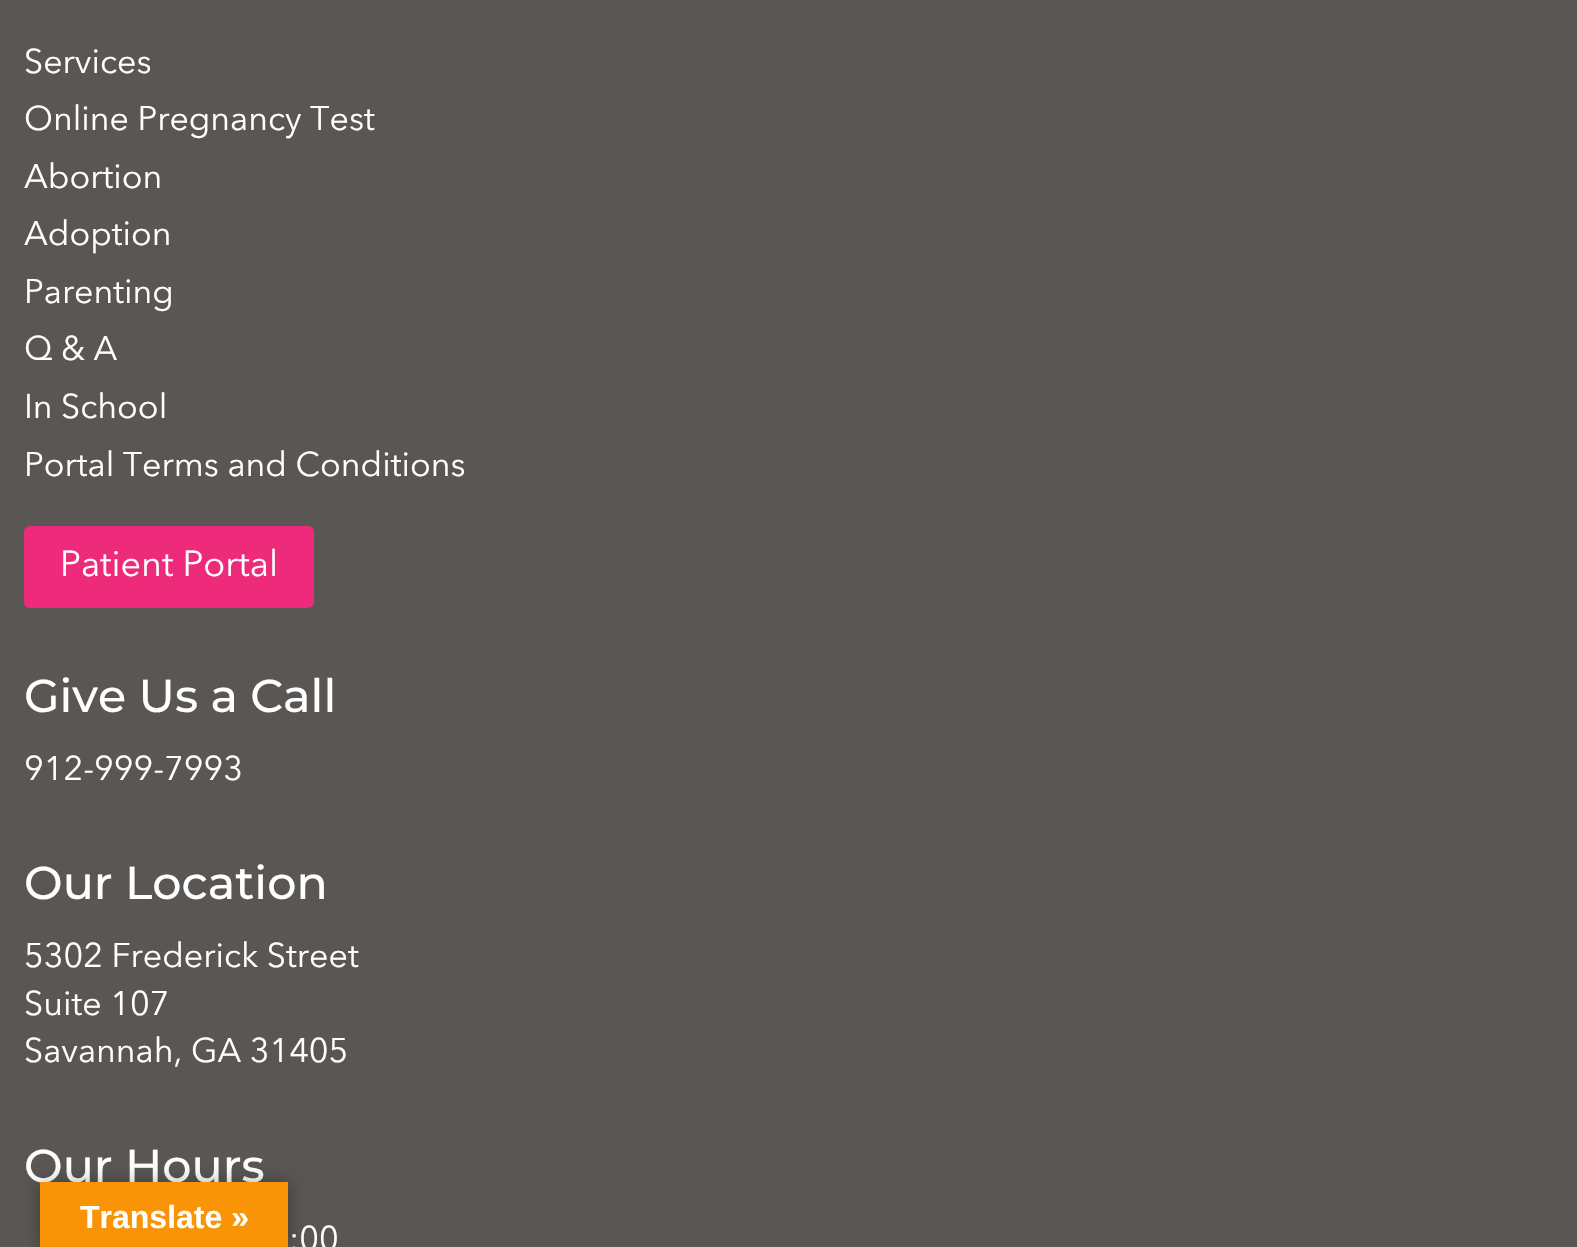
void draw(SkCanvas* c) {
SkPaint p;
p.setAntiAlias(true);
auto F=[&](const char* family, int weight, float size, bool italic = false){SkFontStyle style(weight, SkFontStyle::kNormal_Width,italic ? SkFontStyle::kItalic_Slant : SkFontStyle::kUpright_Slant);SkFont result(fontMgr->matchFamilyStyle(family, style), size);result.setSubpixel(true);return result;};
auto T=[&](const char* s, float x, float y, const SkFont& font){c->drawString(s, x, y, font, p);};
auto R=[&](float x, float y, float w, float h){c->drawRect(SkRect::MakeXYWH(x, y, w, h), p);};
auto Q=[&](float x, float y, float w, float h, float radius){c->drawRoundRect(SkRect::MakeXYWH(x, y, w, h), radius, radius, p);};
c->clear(0xff595653);
auto f1 = F("Avenir Next",400,34);
p.setColor(0xffffffff);
T("Services",24,73,f1);
T("Online Pregnancy Test",24,130,f1);
T("Abortion",24,188,f1);
T("Adoption",24,245,f1);
T("Parenting",24,303,f1);
T("Q & A",24,360,f1);
T("In School",24,418,f1);
T("Portal Terms and Conditions",24,476,f1);
p.setColor(0xffee2a7b);
Q(24,526,290,82,6);
auto f2 = F("Avenir Next",400,36);
p.setColor(0xffffffff);
T("Patient Portal",60,576,f2);
auto f3 = F("Montserrat",500,46);
T("Give Us a Call",24,712,f3);
T("912-999-7993",24,780,f1);
T("Our Location",24,899,f3);
T("5302 Frederick Street",24,967,f1);
T("Suite 107",24,1015,f1);
T("Savannah, GA 31405",24,1062,f1);
T("Our Hours",24,1182,f3);
T(":00",289,1250,f1);
p.setColor(0x4d000000);
p.setMaskFilter(SkMaskFilter::MakeBlur(kNormal_SkBlurStyle, 9));
c->drawRect(SkRect::MakeXYWH(40,1182,248,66),p);
p.setMaskFilter(nullptr);
p.setColor(0xfff89406);
R(40,1182,248,65);
auto f4 = F("Liberation Sans",700,32);
p.setColor(0xffffffff);
T("Translate »",80,1228,f4);
}
